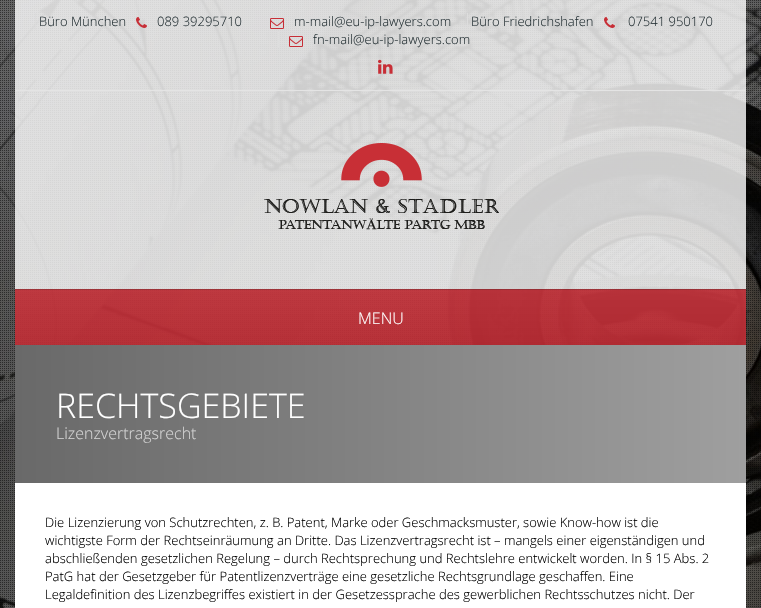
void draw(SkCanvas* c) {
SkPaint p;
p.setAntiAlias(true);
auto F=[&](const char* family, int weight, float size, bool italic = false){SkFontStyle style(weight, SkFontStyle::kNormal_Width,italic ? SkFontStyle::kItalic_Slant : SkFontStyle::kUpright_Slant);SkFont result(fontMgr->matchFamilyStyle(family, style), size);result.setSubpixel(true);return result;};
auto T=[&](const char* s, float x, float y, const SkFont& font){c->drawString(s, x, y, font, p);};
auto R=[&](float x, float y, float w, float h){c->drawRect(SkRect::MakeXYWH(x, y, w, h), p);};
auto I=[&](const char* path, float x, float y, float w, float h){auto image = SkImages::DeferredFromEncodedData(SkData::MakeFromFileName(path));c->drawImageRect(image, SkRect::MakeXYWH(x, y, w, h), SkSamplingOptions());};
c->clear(0xffffffff);
I("1.png",0,0,761,608);
I("2.png",0,0,761,607);
p.setColor(0xccffffff);
R(15,0,731,90);
p.setColor(0xffe4e4e4);
R(15,90,731,1);
p.setColor(0xffdddddd);
R(35,13,1,17);
auto f1 = F("Open Sans",300,13);
p.setColor(0xff253135);
T("Büro München",39,26,f1);
I("3.png",136,17,11,11);
T("089 39295710",157,26,f1);
I("4.png",270,18,14,11);
T("m-mail@eu-ip-lawyers.com",294,26,f1);
p.setColor(0xffdddddd);
R(467,13,1,17);
p.setColor(0xff253135);
T("Büro Friedrichshafen",471,26,f1);
I("5.png",604,17,11,11);
T("07541 950170",628,26,f1);
p.setColor(0xffdddddd);
R(278,31,1,17);
I("6.png",289,36,14,11);
p.setColor(0xff253135);
T("fn-mail@eu-ip-lawyers.com",313,44,f1);
I("7.png",378,59,15,15);
p.setColor(0xccffffff);
R(15,91,731,198);
I("8.png",264,143,235,87);
p.setColor(0xe6c72e36);
R(15,289,731,56);
{
const SkColor colors[] = {0x08000000,0x08ffffff};
const float stops[] = {0,1};
const SkPoint ends[] = {{381,290}, {381,235}};
p.setShader(SkGradientShader::MakeLinear(ends, colors, stops, 2, SkTileMode::kClamp));
p.setAlpha(255);
}
R(15,289,731,1);
{
const SkColor colors[] = {0x08000000,0x08ffffff};
const float stops[] = {0,1};
const SkPoint ends[] = {{381,345}, {381,290}};
p.setShader(SkGradientShader::MakeLinear(ends, colors, stops, 2, SkTileMode::kClamp));
p.setAlpha(255);
}
R(15,290,731,55);
p.setShader(nullptr);
p.setColor(0x33383838);
R(15,289,731,1);
auto f2 = F("Open Sans",300,16);
p.setColor(0xffffffff);
T("MENU",358,324,f2);
{
const SkColor colors[] = {0xff696969,0xff7c7c7c,0xff9f9f9f};
const float stops[] = {0,.37,1};
const SkPoint ends[] = {{15,414}, {746,414}};
p.setShader(SkGradientShader::MakeLinear(ends, colors, stops, 3, SkTileMode::kClamp));
p.setAlpha(255);
}
R(15,345,731,138);
auto f3 = F("Open Sans",300,34);
p.setShader(nullptr);
p.setColor(0xffffffff);
T("RECHTSGEBIETE",56,418,f3);
p.setColor(0xffd4d4d4);
T("Lizenzvertragsrecht",56,439,f2);
p.setColor(0xffffffff);
R(15,483,731,125);
p.setColor(0xff000000);
T("Die Lizenzierung von Schutzrechten, z. B. Patent, Marke oder Geschmacksmuster, sowie Know-how ist die",45,527,f1);
T("wichtigste Form der Rechtseinräumung an Dritte. Das Lizenzvertragsrecht ist – mangels einer eigenständigen und",45,545,f1);
T("abschließenden gesetzlichen Regelung – durch Rechtsprechung und Rechtslehre entwickelt worden. In § 15 Abs. 2",45,563,f1);
T("PatG hat der Gesetzgeber für Patentlizenzverträge eine gesetzliche Rechtsgrundlage geschaffen. Eine",45,581,f1);
T("Legaldefinition des Lizenzbegriffes existiert in der Gesetzessprache des gewerblichen Rechtsschutzes nicht. Der",45,599,f1);
}
